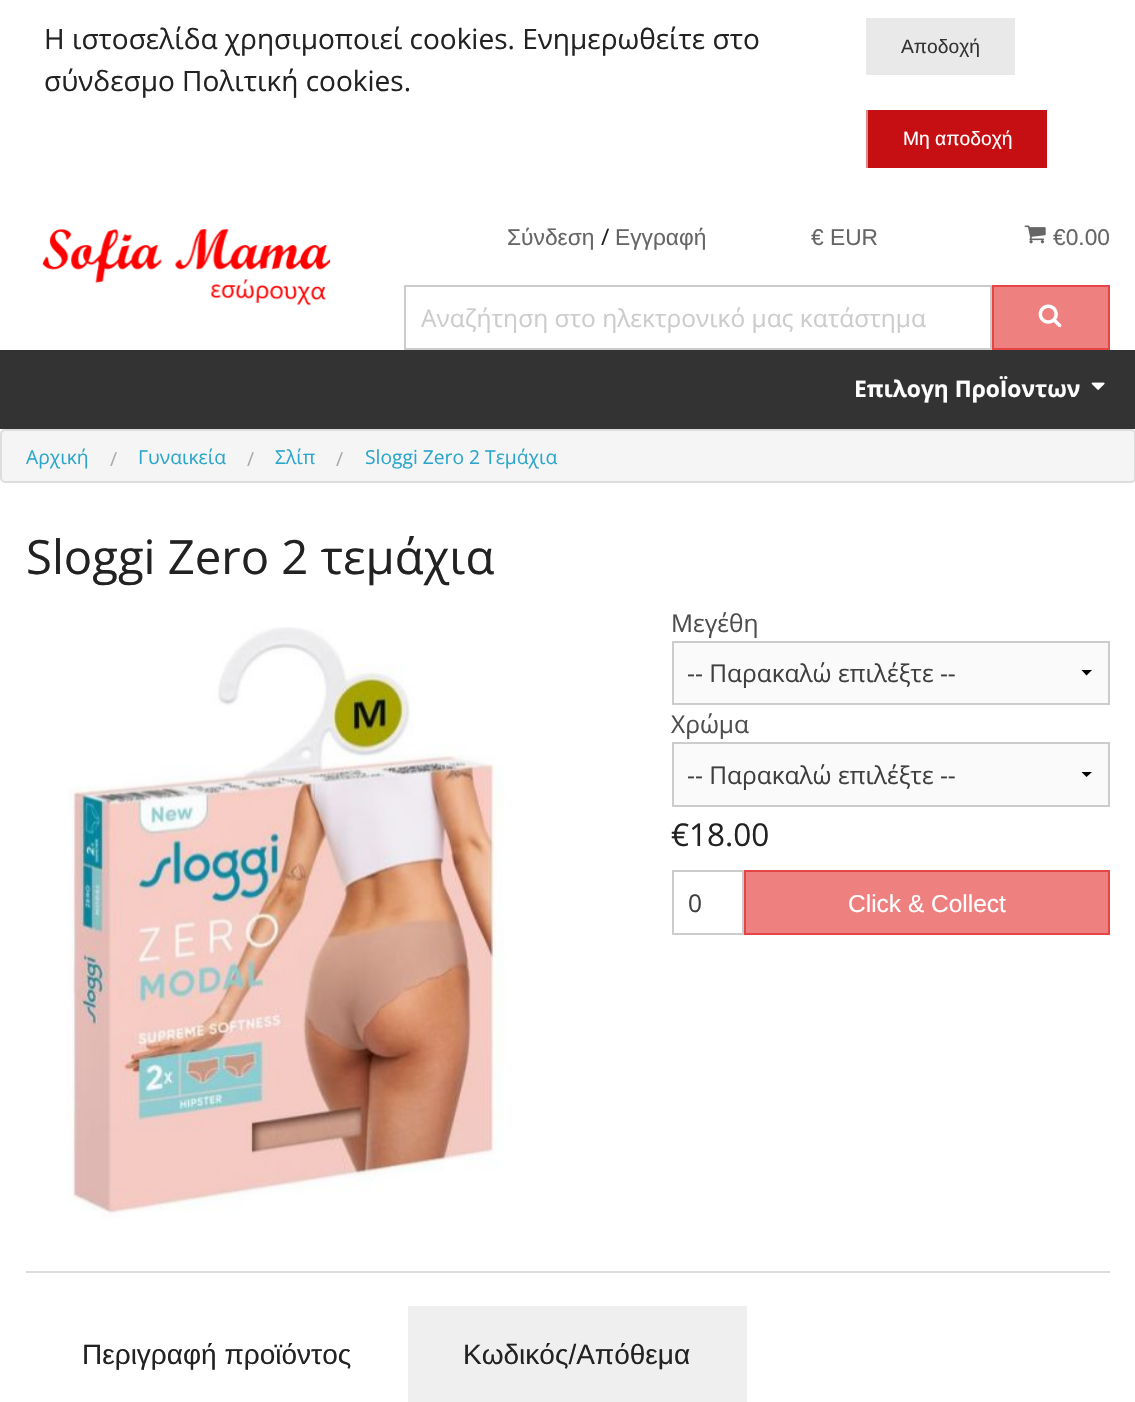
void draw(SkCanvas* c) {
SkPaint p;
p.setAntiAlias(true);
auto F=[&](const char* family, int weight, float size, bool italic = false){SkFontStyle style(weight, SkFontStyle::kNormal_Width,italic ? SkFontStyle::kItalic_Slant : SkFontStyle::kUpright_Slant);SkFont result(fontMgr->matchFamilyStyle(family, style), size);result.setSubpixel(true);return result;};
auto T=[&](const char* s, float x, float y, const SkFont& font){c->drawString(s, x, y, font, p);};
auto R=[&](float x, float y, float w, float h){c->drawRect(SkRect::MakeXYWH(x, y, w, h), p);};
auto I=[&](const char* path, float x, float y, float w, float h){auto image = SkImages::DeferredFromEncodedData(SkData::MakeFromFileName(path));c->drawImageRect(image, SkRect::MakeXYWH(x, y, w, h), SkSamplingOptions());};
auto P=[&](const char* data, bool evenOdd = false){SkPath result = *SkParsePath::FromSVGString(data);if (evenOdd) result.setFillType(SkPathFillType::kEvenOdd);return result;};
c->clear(0xffffffff);
auto f1 = F("Open Sans",400,28);
p.setColor(0xff222222);
T("Η ιστοσελίδα χρησιμοποιεί cookies. Ενημερωθείτε στο",44,49,f1);
T("σύνδεσμο Πολιτική cookies.",44,91,f1);
p.setColor(0xffe9e9e9);
R(866,18,149,57);
auto f2 = F("Liberation Sans",400,19.25);
p.setColor(0xff333333);
T("Αποδοχή",901,53,f2);
p.setColor(0xffc60f13);
R(868,110,179,58);
p.setColor(0xffe38789);
R(866,110,2,58);
p.setColor(0xffffffff);
T("Μη αποδοχή",903,145,f2);
I("1.png",42,229,289,77);
auto f3 = F("Liberation Sans",400,22.75);
p.setColor(0xff666666);
T("Σύνδεση",507,245,f3);
auto f4 = F("Open Sans",400,22.75);
p.setColor(0xff222222);
T("/",601,245,f4);
p.setColor(0xff666666);
T("Εγγραφή",615,245,f3);
T("€ EUR",811,245,f3);
I("2.png",1024,225,22,19);
T("€0.00",1053,245,f3);
p.setStroke(true);
p.setStrokeWidth(2);
p.setColor(0xffcccccc);
c->drawRect(SkRect::MakeXYWH(405,286,586,63),p);
auto f5 = F("Open Sans",400,24.5);
p.setStroke(false);
T("Αναζήτηση στο ηλεκτρονικό μας κατάστημα",421,327,f5);
p.setColor(0xffee8080);
c->drawRect(SkRect::MakeXYWH(993,286,116,63),p);
p.setStroke(true);
p.setColor(0xffe64545);
c->drawRect(SkRect::MakeXYWH(993,286,116,63),p);
I("3.png",1038,304,24,23);
p.setStroke(false);
p.setColor(0xff333333);
R(0,350,1135,79);
auto f6 = F("Open Sans",700,22.75);
p.setColor(0xffffffff);
T("Επιλογη ΠροΪοντων",854,397,f6);
I("4.png",1091,382,14,8);
p.setColor(0xfff5f5f5);
c->drawRoundRect(SkRect::MakeXYWH(1,430,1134,52),4,4,p);
p.setStroke(true);
p.setColor(0xffdddddd);
c->drawRoundRect(SkRect::MakeXYWH(1,430,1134,52),4,4,p);
auto f7 = F("Open Sans",400,19.25);
p.setStroke(false);
p.setColor(0xff2ba6cb);
T("Αρχική",26,464,f7);
p.setColor(0xffaaaaaa);
T("/",110,466,f7);
p.setColor(0xff2ba6cb);
T("Γυναικεία",138,464,f7);
p.setColor(0xffaaaaaa);
T("/",247,466,f7);
p.setColor(0xff2ba6cb);
T("Σλίπ",275,464,f7);
p.setColor(0xffaaaaaa);
T("/",336,466,f7);
p.setColor(0xff2ba6cb);
T("Sloggi Zero 2 Τεμάχια",365,464,f7);
auto f8 = F("Open Sans",400,47.25);
p.setColor(0xff222222);
T("Sloggi Zero 2 τεμάχια",26,574,f8);
I("5.png",67,627,437,592);
p.setColor(0xff4d4d4d);
T("Μεγέθη",671,632,f5);
p.setColor(0xfffafafa);
R(674,643,434,60);
p.setColor(0xff000000);
c->drawPath(P("M1092 670l-5.5 5.5l-5-5.5z"),p);
p.setStroke(true);
p.setColor(0xffcccccc);
c->drawRect(SkRect::MakeXYWH(673,642,436,62),p);
p.setStroke(false);
p.setColor(0xff3f3f3f);
T("-- Παρακαλώ επιλέξτε --",687,682,f5);
p.setColor(0xff4d4d4d);
T("Χρώμα",671,733,f5);
p.setColor(0xfffafafa);
R(674,744,434,61);
p.setColor(0xff000000);
c->drawPath(P("M1092 772l-5.5 5l-5-5z"),p);
p.setStroke(true);
p.setColor(0xffcccccc);
c->drawRect(SkRect::MakeXYWH(673,743,436,63),p);
p.setStroke(false);
p.setColor(0xff3f3f3f);
T("-- Παρακαλώ επιλέξτε --",687,784,f5);
auto f9 = F("Open Sans",400,31.5);
p.setColor(0xff222222);
T("€18.00",671,846,f9);
p.setStroke(true);
p.setColor(0xffcccccc);
c->drawRect(SkRect::MakeXYWH(673,871,70,63),p);
p.setStroke(false);
p.setColor(0xff3f3f3f);
T("0",688,912,f5);
p.setColor(0xffee8080);
c->drawRect(SkRect::MakeXYWH(745,871,364,63),p);
p.setStroke(true);
p.setColor(0xffe64545);
c->drawRect(SkRect::MakeXYWH(745,871,364,63),p);
auto f10 = F("Liberation Sans",400,24.5);
p.setStroke(false);
p.setColor(0xffffffff);
T("Click & Collect",848,912,f10);
p.setColor(0xffdddddd);
R(26,1271,1084,2);
auto f11 = F("Liberation Sans",400,28);
p.setColor(0xff222222);
T("Περιγραφή προϊόντος",82,1364,f11);
p.setColor(0xffefefef);
R(408,1306,339,96);
p.setColor(0xff222222);
T("Κωδικός/Απόθεμα",463,1364,f11);
}
